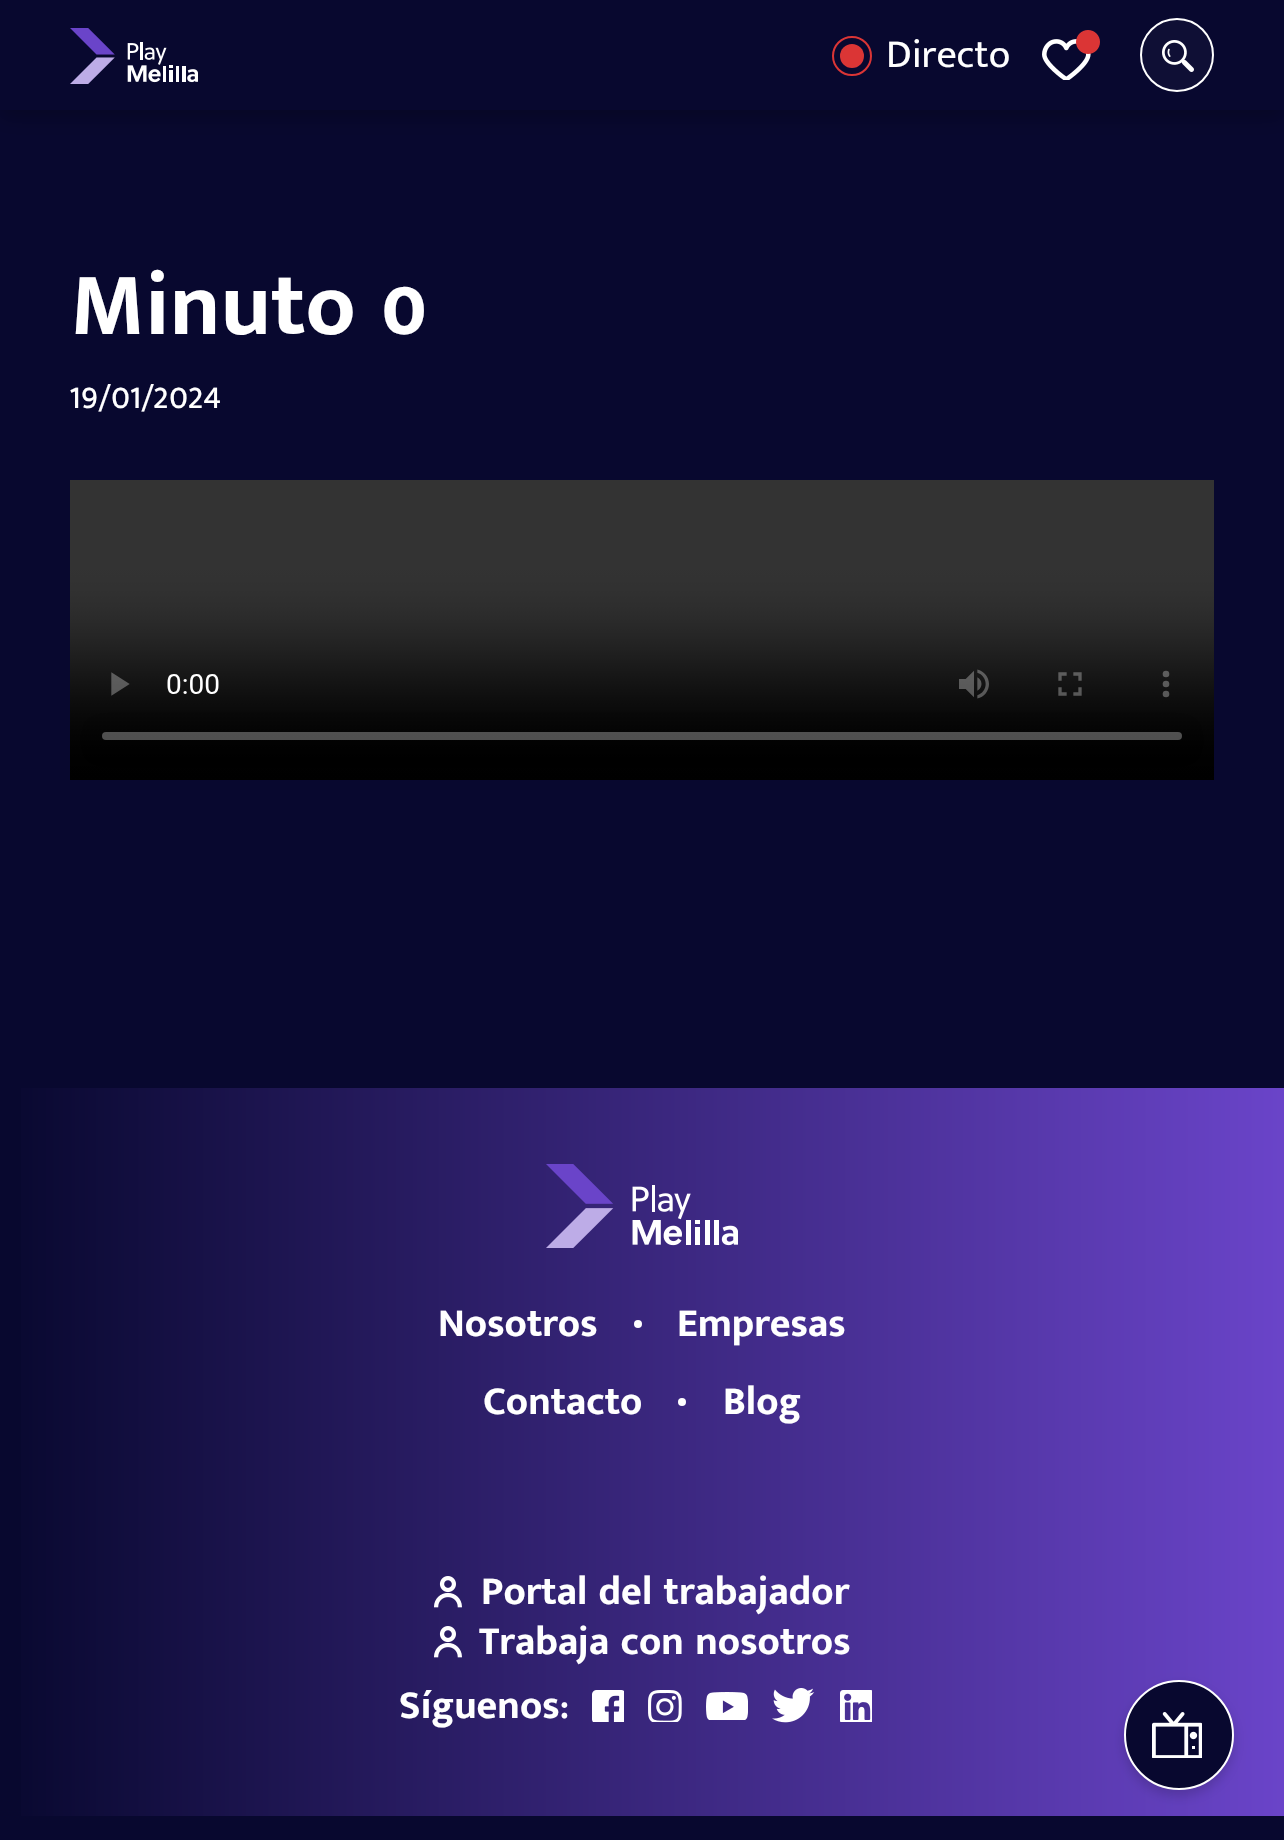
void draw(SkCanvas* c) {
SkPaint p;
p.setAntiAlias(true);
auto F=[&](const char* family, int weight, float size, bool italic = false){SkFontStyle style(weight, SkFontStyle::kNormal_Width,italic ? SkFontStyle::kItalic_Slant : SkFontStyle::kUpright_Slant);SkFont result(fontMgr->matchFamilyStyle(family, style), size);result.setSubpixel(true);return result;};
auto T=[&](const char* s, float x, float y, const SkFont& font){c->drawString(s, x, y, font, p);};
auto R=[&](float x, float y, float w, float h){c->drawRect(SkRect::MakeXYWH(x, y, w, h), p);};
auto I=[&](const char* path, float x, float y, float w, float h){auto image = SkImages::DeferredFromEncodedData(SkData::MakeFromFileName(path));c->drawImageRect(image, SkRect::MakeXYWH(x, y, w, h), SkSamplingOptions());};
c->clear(0xff08082f);
p.setColor(0x40000000);
p.setMaskFilter(SkMaskFilter::MakeBlur(kNormal_SkBlurStyle, 10));
c->drawRect(SkRect::MakeXYWH(0,6,1284,110),p);
p.setMaskFilter(nullptr);
p.setColor(0xff08082f);
R(0,0,1284,110);
I("1.png",70,28,128,56);
p.setStroke(true);
p.setStrokeWidth(2);
p.setColor(0xffdb3535);
c->drawCircle(852,56,19,p);
auto f1 = F("Mukta Malar",400,40);
p.setStroke(false);
p.setColor(0xffffffff);
T("Directo",886,67,f1);
p.setColor(0xffdb3535);
c->drawCircle(852,56,12,p);
I("2.png",1042,30,58,50);
p.setColor(0xff0f0f35);
c->drawCircle(1177,55,37,p);
I("3.png",1162,40,32,32);
p.setStroke(true);
p.setColor(0xffffffff);
c->drawCircle(1177,55,36,p);
auto f2 = F("Mukta Malar",700,90);
p.setStroke(false);
T("Minuto 0",70,334,f2);
T("19/01/2024",70,408,f1);
I("4.png",70,480,1144,300);
{
const SkColor colors[] = {0xff08082f,0xff6a44c9};
const float stops[] = {0,1};
const SkPoint ends[] = {{0,1452}, {1284,1452}};
p.setShader(SkGradientShader::MakeLinear(ends, colors, stops, 2, SkTileMode::kClamp));
p.setAlpha(255);
}
R(21,1088,1263,728);
I("5.png",546,1164,192,84);
auto f3 = F("Mukta Malar",700,40);
p.setShader(nullptr);
p.setColor(0xffffffff);
T("Nosotros",438,1336,f3);
c->drawCircle(638,1324,4,p);
T("Empresas",677,1336,f3);
T("Contacto",483,1414,f3);
c->drawCircle(682,1402,4,p);
T("Blog",723,1414,f3);
I("6.png",434,1576,28,32);
T("Portal del trabajador",481,1604,f3);
I("6.png",434,1626,28,32);
T("Trabaja con nosotros",479,1654,f3);
T("Síguenos:",399,1718,f3);
I("7.png",592,1690,32,32);
I("8.png",648,1690,34,32);
I("9.png",706,1692,42,28);
I("10.png",772,1688,43,35);
I("11.png",840,1690,32,32);
p.setColor(0x29000000);
p.setMaskFilter(SkMaskFilter::MakeBlur(kNormal_SkBlurStyle, 6));
c->drawRoundRect(SkRect::MakeXYWH(1124,1686,110,110),55,55,p);
p.setMaskFilter(nullptr);
p.setColor(0xff08082f);
c->drawCircle(1179,1735,54,p);
p.setStroke(true);
p.setColor(0xffffffff);
c->drawCircle(1179,1735,54,p);
I("12.png",1152,1712,50,46);
}
